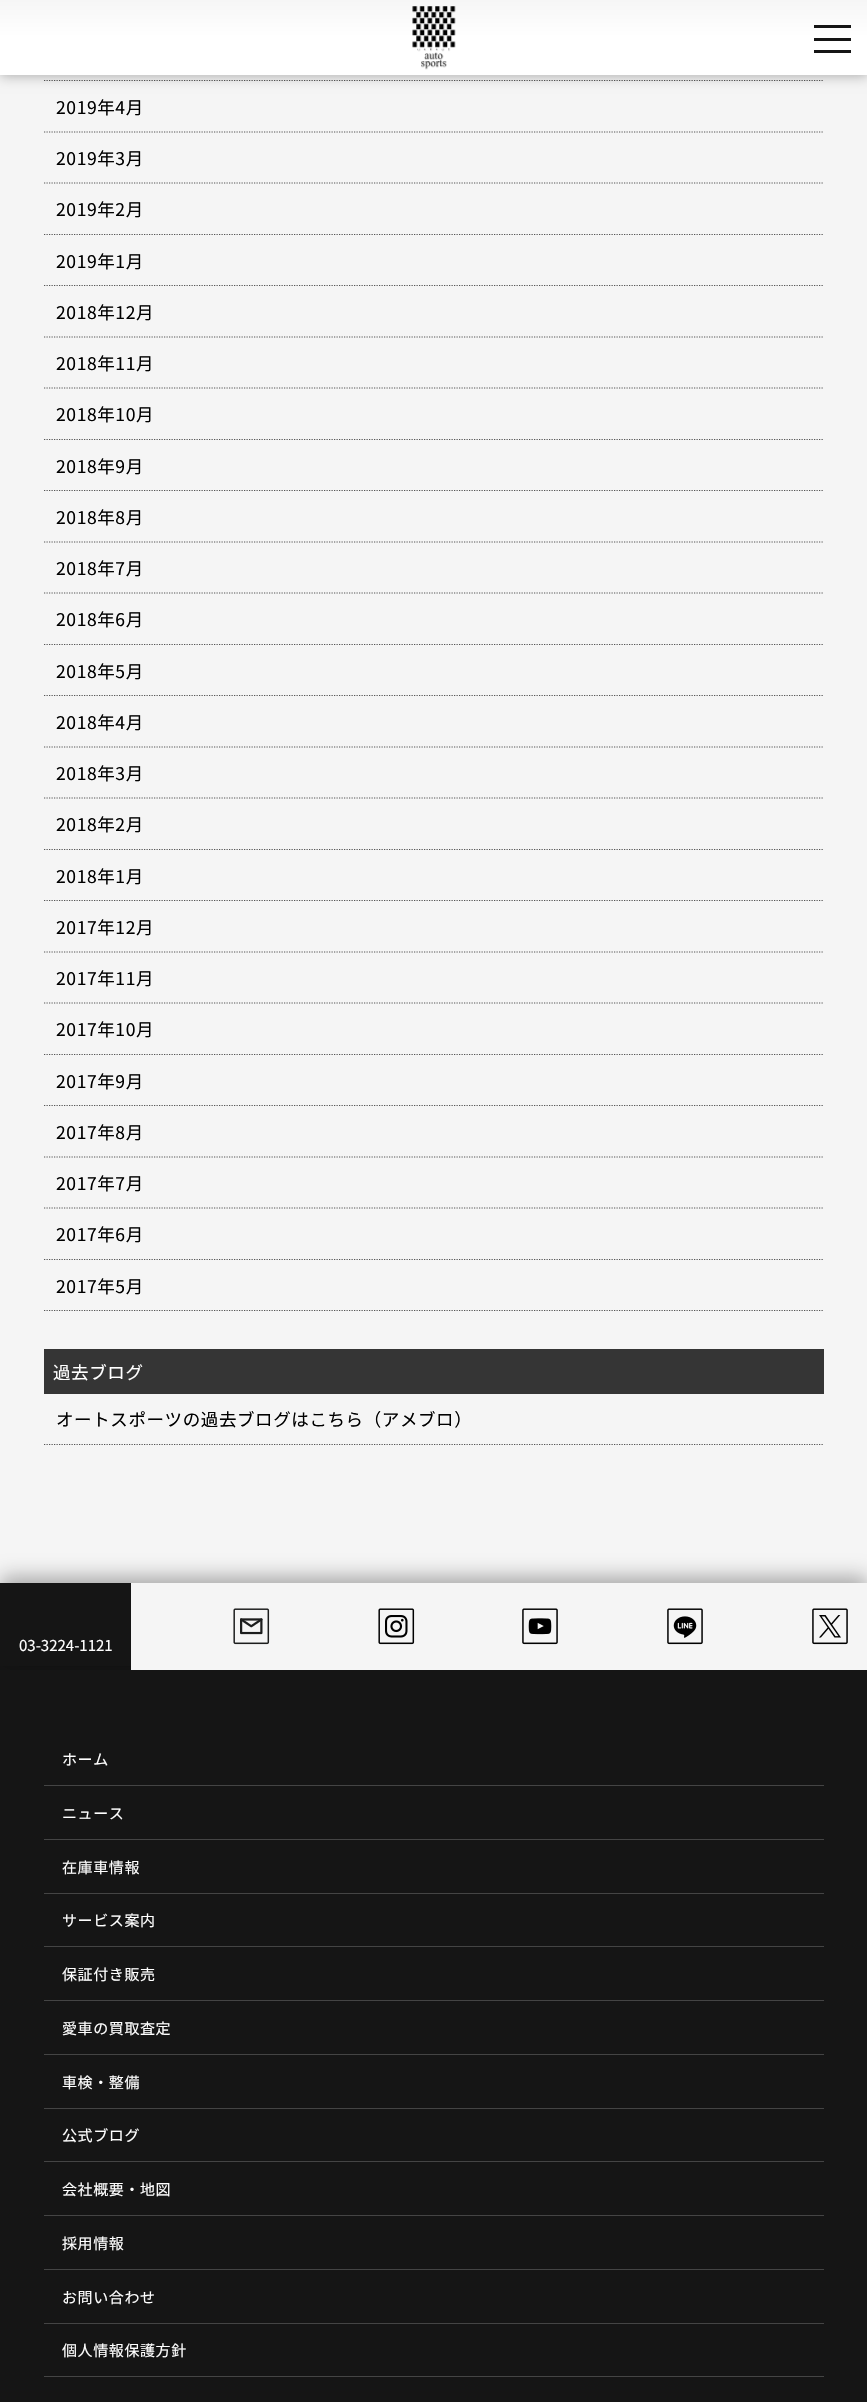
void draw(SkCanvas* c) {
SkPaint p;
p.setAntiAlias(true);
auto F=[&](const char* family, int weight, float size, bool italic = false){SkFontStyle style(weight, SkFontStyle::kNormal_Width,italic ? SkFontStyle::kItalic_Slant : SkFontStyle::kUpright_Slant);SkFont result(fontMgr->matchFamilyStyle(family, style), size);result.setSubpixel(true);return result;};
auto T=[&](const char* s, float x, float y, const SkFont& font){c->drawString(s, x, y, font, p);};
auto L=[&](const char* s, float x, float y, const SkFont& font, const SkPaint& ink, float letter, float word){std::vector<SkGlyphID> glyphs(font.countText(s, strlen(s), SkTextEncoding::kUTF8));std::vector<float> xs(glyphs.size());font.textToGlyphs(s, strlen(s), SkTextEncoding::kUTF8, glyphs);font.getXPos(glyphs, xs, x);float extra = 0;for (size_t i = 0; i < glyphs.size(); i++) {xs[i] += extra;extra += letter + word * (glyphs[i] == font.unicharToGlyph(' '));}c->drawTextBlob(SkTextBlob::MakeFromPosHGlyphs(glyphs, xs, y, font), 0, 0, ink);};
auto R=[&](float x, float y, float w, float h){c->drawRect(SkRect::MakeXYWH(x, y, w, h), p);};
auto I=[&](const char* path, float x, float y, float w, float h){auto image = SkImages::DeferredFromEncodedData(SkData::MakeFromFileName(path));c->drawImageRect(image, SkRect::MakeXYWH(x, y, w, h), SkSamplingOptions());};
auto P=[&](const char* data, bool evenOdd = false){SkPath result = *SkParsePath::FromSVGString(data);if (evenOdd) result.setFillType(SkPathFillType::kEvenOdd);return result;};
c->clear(0xff151515);
p.setColor(0xfff5f5f5);
R(0,75,867,1508);
p.setStroke(true);
p.setStrokeWidth(1.2);
p.setColor(0xff555555);
p.setPathEffect(SkDashPathEffect::Make({{1.25f,1.25f}}, 0));
c->drawPath(P("M44 80.5h780"),p);
p.setPathEffect(nullptr);
p.setStroke(false);
p.setColor(0x4d000000);
p.setMaskFilter(SkMaskFilter::MakeBlur(kNormal_SkBlurStyle, 6));
c->drawRect(SkRect::MakeXYWH(0,1,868,75),p);
p.setMaskFilter(nullptr);
{
const SkColor colors[] = {0xffffffff,0xfff6f6f6};
const float stops[] = {.5,1};
const SkPoint ends[] = {{434,75}, {434,0}};
p.setShader(SkGradientShader::MakeLinear(ends, colors, stops, 2, SkTileMode::kClamp));
p.setAlpha(255);
}
R(0,0,867,75);
I("1.png",412,6,44,64);
p.setShader(nullptr);
p.setColor(0xff151515);
R(814,25,37,3);
R(814,38,37,3);
R(814,50,37,3);
p.setStroke(true);
p.setColor(0xff555555);
p.setPathEffect(SkDashPathEffect::Make({{1.25f,1.25f}}, 0));
c->drawPath(P("M44 132h780"),p);
p.setPathEffect(nullptr);
auto f1 = F("Noto Sans JP",400,17.5);
p.setStroke(false);
p.setColor(0xff000000);
L("2019年4月",56,114,f1,p,.6,0);
p.setStroke(true);
p.setColor(0xff555555);
p.setPathEffect(SkDashPathEffect::Make({{1.25f,1.25f}}, 0));
c->drawPath(P("M44 183h780"),p);
p.setPathEffect(nullptr);
p.setStroke(false);
p.setColor(0xff000000);
L("2019年3月",56,165,f1,p,.6,0);
p.setStroke(true);
p.setColor(0xff555555);
p.setPathEffect(SkDashPathEffect::Make({{1.25f,1.25f}}, 0));
c->drawPath(P("M44 234.5h780"),p);
p.setPathEffect(nullptr);
p.setStroke(false);
p.setColor(0xff000000);
L("2019年2月",56,216,f1,p,.6,0);
p.setStroke(true);
p.setColor(0xff555555);
p.setPathEffect(SkDashPathEffect::Make({{1.25f,1.25f}}, 0));
c->drawPath(P("M44 285.5h780"),p);
p.setPathEffect(nullptr);
p.setStroke(false);
p.setColor(0xff000000);
L("2019年1月",56,268,f1,p,.6,0);
p.setStroke(true);
p.setColor(0xff555555);
p.setPathEffect(SkDashPathEffect::Make({{1.25f,1.25f}}, 0));
c->drawPath(P("M44 337h780"),p);
p.setPathEffect(nullptr);
p.setStroke(false);
p.setColor(0xff000000);
L("2018年12月",56,319,f1,p,.6,0);
p.setStroke(true);
p.setColor(0xff555555);
p.setPathEffect(SkDashPathEffect::Make({{1.25f,1.25f}}, 0));
c->drawPath(P("M44 388h780"),p);
p.setPathEffect(nullptr);
p.setStroke(false);
p.setColor(0xff000000);
L("2018年11月",56,370,f1,p,.6,0);
p.setStroke(true);
p.setColor(0xff555555);
p.setPathEffect(SkDashPathEffect::Make({{1.25f,1.25f}}, 0));
c->drawPath(P("M44 439.5h780"),p);
p.setPathEffect(nullptr);
p.setStroke(false);
p.setColor(0xff000000);
L("2018年10月",56,421,f1,p,.6,0);
p.setStroke(true);
p.setColor(0xff555555);
p.setPathEffect(SkDashPathEffect::Make({{1.25f,1.25f}}, 0));
c->drawPath(P("M44 490.5h780"),p);
p.setPathEffect(nullptr);
p.setStroke(false);
p.setColor(0xff000000);
L("2018年9月",56,473,f1,p,.6,0);
p.setStroke(true);
p.setColor(0xff555555);
p.setPathEffect(SkDashPathEffect::Make({{1.25f,1.25f}}, 0));
c->drawPath(P("M44 542h780"),p);
p.setPathEffect(nullptr);
p.setStroke(false);
p.setColor(0xff000000);
L("2018年8月",56,524,f1,p,.6,0);
p.setStroke(true);
p.setColor(0xff555555);
p.setPathEffect(SkDashPathEffect::Make({{1.25f,1.25f}}, 0));
c->drawPath(P("M44 593h780"),p);
p.setPathEffect(nullptr);
p.setStroke(false);
p.setColor(0xff000000);
L("2018年7月",56,575,f1,p,.6,0);
p.setStroke(true);
p.setColor(0xff555555);
p.setPathEffect(SkDashPathEffect::Make({{1.25f,1.25f}}, 0));
c->drawPath(P("M44 644.5h780"),p);
p.setPathEffect(nullptr);
p.setStroke(false);
p.setColor(0xff000000);
L("2018年6月",56,626,f1,p,.6,0);
p.setStroke(true);
p.setColor(0xff555555);
p.setPathEffect(SkDashPathEffect::Make({{1.25f,1.25f}}, 0));
c->drawPath(P("M44 695.5h780"),p);
p.setPathEffect(nullptr);
p.setStroke(false);
p.setColor(0xff000000);
L("2018年5月",56,678,f1,p,.6,0);
p.setStroke(true);
p.setColor(0xff555555);
p.setPathEffect(SkDashPathEffect::Make({{1.25f,1.25f}}, 0));
c->drawPath(P("M44 747h780"),p);
p.setPathEffect(nullptr);
p.setStroke(false);
p.setColor(0xff000000);
L("2018年4月",56,729,f1,p,.6,0);
p.setStroke(true);
p.setColor(0xff555555);
p.setPathEffect(SkDashPathEffect::Make({{1.25f,1.25f}}, 0));
c->drawPath(P("M44 798h780"),p);
p.setPathEffect(nullptr);
p.setStroke(false);
p.setColor(0xff000000);
L("2018年3月",56,780,f1,p,.6,0);
p.setStroke(true);
p.setColor(0xff555555);
p.setPathEffect(SkDashPathEffect::Make({{1.25f,1.25f}}, 0));
c->drawPath(P("M44 849.5h780"),p);
p.setPathEffect(nullptr);
p.setStroke(false);
p.setColor(0xff000000);
L("2018年2月",56,831,f1,p,.6,0);
p.setStroke(true);
p.setColor(0xff555555);
p.setPathEffect(SkDashPathEffect::Make({{1.25f,1.25f}}, 0));
c->drawPath(P("M44 900.5h780"),p);
p.setPathEffect(nullptr);
p.setStroke(false);
p.setColor(0xff000000);
L("2018年1月",56,883,f1,p,.6,0);
p.setStroke(true);
p.setColor(0xff555555);
p.setPathEffect(SkDashPathEffect::Make({{1.25f,1.25f}}, 0));
c->drawPath(P("M44 952h780"),p);
p.setPathEffect(nullptr);
p.setStroke(false);
p.setColor(0xff000000);
L("2017年12月",56,934,f1,p,.6,0);
p.setStroke(true);
p.setColor(0xff555555);
p.setPathEffect(SkDashPathEffect::Make({{1.25f,1.25f}}, 0));
c->drawPath(P("M44 1003h780"),p);
p.setPathEffect(nullptr);
p.setStroke(false);
p.setColor(0xff000000);
L("2017年11月",56,985,f1,p,.6,0);
p.setStroke(true);
p.setColor(0xff555555);
p.setPathEffect(SkDashPathEffect::Make({{1.25f,1.25f}}, 0));
c->drawPath(P("M44 1054.5h780"),p);
p.setPathEffect(nullptr);
p.setStroke(false);
p.setColor(0xff000000);
L("2017年10月",56,1036,f1,p,.6,0);
p.setStroke(true);
p.setColor(0xff555555);
p.setPathEffect(SkDashPathEffect::Make({{1.25f,1.25f}}, 0));
c->drawPath(P("M44 1105.5h780"),p);
p.setPathEffect(nullptr);
p.setStroke(false);
p.setColor(0xff000000);
L("2017年9月",56,1088,f1,p,.6,0);
p.setStroke(true);
p.setColor(0xff555555);
p.setPathEffect(SkDashPathEffect::Make({{1.25f,1.25f}}, 0));
c->drawPath(P("M44 1157h780"),p);
p.setPathEffect(nullptr);
p.setStroke(false);
p.setColor(0xff000000);
L("2017年8月",56,1139,f1,p,.6,0);
p.setStroke(true);
p.setColor(0xff555555);
p.setPathEffect(SkDashPathEffect::Make({{1.25f,1.25f}}, 0));
c->drawPath(P("M44 1208h780"),p);
p.setPathEffect(nullptr);
p.setStroke(false);
p.setColor(0xff000000);
L("2017年7月",56,1190,f1,p,.6,0);
p.setStroke(true);
p.setColor(0xff555555);
p.setPathEffect(SkDashPathEffect::Make({{1.25f,1.25f}}, 0));
c->drawPath(P("M44 1259.5h780"),p);
p.setPathEffect(nullptr);
p.setStroke(false);
p.setColor(0xff000000);
L("2017年6月",56,1241,f1,p,.6,0);
p.setStroke(true);
p.setColor(0xff555555);
p.setPathEffect(SkDashPathEffect::Make({{1.25f,1.25f}}, 0));
c->drawPath(P("M44 1310.5h780"),p);
p.setPathEffect(nullptr);
p.setStroke(false);
p.setColor(0xff000000);
L("2017年5月",56,1293,f1,p,.6,0);
p.setColor(0xff353535);
R(44,1349,780,45);
p.setColor(0xffffffff);
L("過去ブログ",53,1379,f1,p,.6,0);
c->save();
c->clipRect(SkRect::MakeXYWH(44,1349,780,96));
p.setStroke(true);
p.setColor(0xff555555);
p.setPathEffect(SkDashPathEffect::Make({{1.25f,1.25f}}, 0));
c->drawPath(P("M44 1444.5h780"),p);
p.setPathEffect(nullptr);
c->restore();
p.setStroke(false);
p.setColor(0xff000000);
L("オートスポーツの過去ブログはこちら（アメブロ）",56,1426,f1,p,.6,0);
c->save();
c->clipRect(SkRect::MakeXYWH(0,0,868,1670));
p.setColor(0x4d000000);
p.setMaskFilter(SkMaskFilter::MakeBlur(kNormal_SkBlurStyle, 9.5));
c->drawRoundRect(SkRect::MakeXYWH(0,1576,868,88),6,6,p);
p.setMaskFilter(nullptr);
c->restore();
p.setColor(0xfff5f5f5);
R(131,1583,736,87);
p.setColor(0xff151515);
R(0,1583,131,83);
auto f2 = F("Noto Sans JP",400,15);
p.setColor(0xffffffff);
T("03-3224-1121",19,1651,f2);
I("2.png",233,1608,37,37);
I("3.png",378,1608,37,37);
I("4.png",522,1608,36,37);
I("5.png",667,1608,36,37);
I("6.png",812,1608,36,37);
p.setColor(0xff444444);
R(44,1785,780,1);
p.setColor(0xffffffff);
L("ホーム",62,1765,f2,p,.6,0);
p.setColor(0xff444444);
R(44,1839,780,1);
p.setColor(0xffffffff);
L("ニュース",62,1819,f2,p,.6,0);
p.setColor(0xff444444);
R(44,1893,780,1);
p.setColor(0xffffffff);
L("在庫車情報",62,1873,f2,p,.6,0);
p.setColor(0xff444444);
R(44,1946,780,1);
p.setColor(0xffffffff);
L("サービス案内",62,1926,f2,p,.6,0);
p.setColor(0xff444444);
R(44,2000,780,1);
p.setColor(0xffffffff);
L("保証付き販売",62,1980,f2,p,.6,0);
p.setColor(0xff444444);
R(44,2054,780,1);
p.setColor(0xffffffff);
L("愛車の買取査定",62,2034,f2,p,.6,0);
p.setColor(0xff444444);
R(44,2108,780,1);
p.setColor(0xffffffff);
L("車検・整備",62,2088,f2,p,.6,0);
p.setColor(0xff444444);
R(44,2161,780,1);
p.setColor(0xffffffff);
L("公式ブログ",62,2141,f2,p,.6,0);
p.setColor(0xff444444);
R(44,2215,780,1);
p.setColor(0xffffffff);
L("会社概要・地図",62,2195,f2,p,.6,0);
p.setColor(0xff444444);
R(44,2269,780,1);
p.setColor(0xffffffff);
L("採用情報",62,2249,f2,p,.6,0);
p.setColor(0xff444444);
R(44,2323,780,1);
p.setColor(0xffffffff);
L("お問い合わせ",62,2303,f2,p,.6,0);
p.setColor(0xff444444);
R(44,2376,780,1);
p.setColor(0xffffffff);
L("個人情報保護方針",62,2356,f2,p,.6,0);
}
